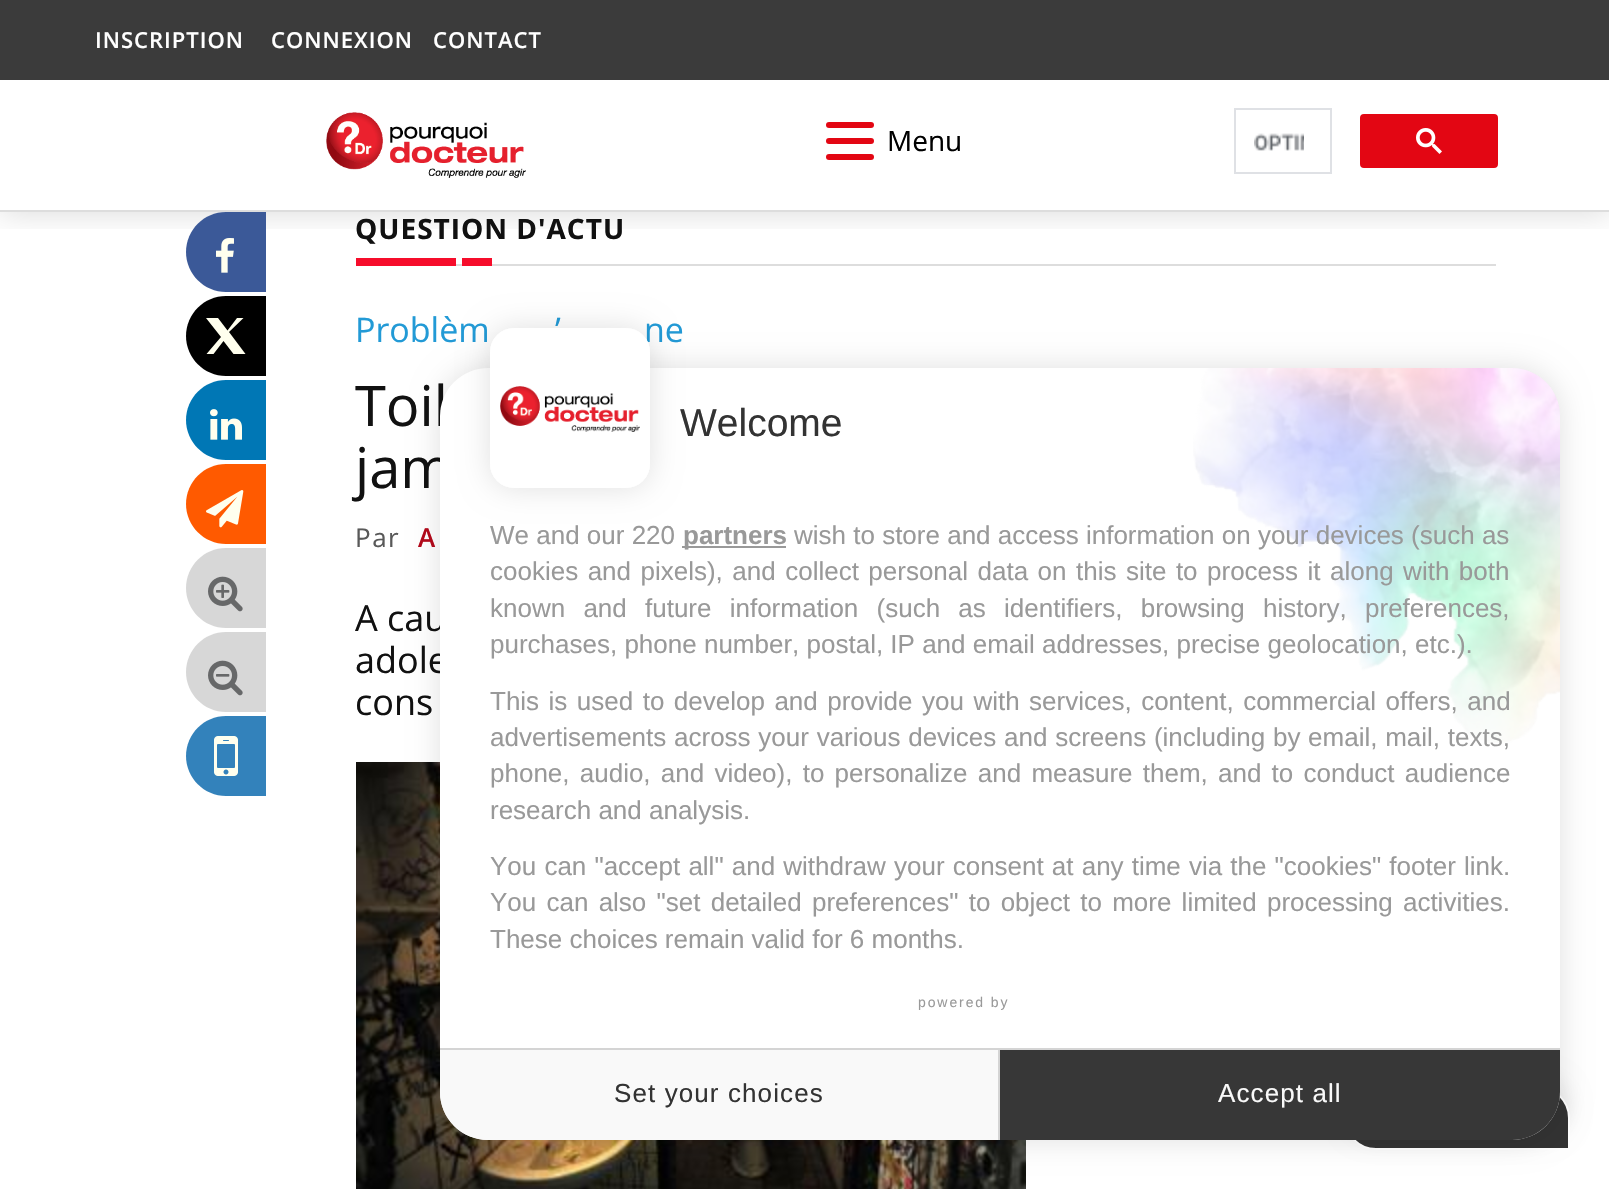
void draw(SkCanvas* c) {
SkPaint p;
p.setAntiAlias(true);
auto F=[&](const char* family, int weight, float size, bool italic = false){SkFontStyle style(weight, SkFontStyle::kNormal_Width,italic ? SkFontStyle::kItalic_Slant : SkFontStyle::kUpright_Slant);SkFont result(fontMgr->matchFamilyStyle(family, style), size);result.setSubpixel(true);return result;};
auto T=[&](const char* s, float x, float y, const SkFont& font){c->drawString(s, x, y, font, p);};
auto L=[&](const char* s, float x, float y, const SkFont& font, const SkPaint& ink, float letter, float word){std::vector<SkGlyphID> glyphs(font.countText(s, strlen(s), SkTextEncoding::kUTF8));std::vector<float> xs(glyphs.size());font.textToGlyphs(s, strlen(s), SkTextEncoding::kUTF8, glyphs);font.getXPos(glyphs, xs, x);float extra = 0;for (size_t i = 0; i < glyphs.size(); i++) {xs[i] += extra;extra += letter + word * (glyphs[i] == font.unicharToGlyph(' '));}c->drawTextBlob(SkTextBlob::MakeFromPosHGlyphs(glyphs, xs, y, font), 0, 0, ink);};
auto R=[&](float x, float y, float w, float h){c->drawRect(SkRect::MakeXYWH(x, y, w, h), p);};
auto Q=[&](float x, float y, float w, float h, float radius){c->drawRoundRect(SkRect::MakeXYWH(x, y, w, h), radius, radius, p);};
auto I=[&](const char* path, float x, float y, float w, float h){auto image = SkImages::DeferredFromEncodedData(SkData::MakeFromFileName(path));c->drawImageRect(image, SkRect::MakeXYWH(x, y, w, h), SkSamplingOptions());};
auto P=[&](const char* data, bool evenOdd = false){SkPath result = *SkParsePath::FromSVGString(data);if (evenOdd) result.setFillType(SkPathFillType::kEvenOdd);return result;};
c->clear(0xffffffff);
c->save();
c->clipRect(SkRect::MakeXYWH(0,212,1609,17));
p.setColor(0x26000000);
p.setMaskFilter(SkMaskFilter::MakeBlur(kNormal_SkBlurStyle, 15));
c->drawRect(SkRect::MakeXYWH(0,0,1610,212),p);
p.setMaskFilter(nullptr);
c->restore();
p.setColor(0xff3b3b3b);
R(0,0,1609,80);
auto f1 = F("Open Sans",600,22);
p.setColor(0xffffffff);
L("INSCRIPTION",95,48,f1,p,1,0);
L("CONNEXION",271,48,f1,p,1,0);
L("CONTACT",433,48,f1,p,1,0);
p.setColor(0xffdddddd);
R(0,210,1609,2);
I("1.png",326,112,200,66);
p.setColor(0xffe30613);
Q(826,122,48,6,3);
Q(826,138,48,6,3);
Q(826,154,48,6,3);
auto f2 = F("Open Sans",400,28);
p.setColor(0xff000000);
T("Menu",887,151,f2);
p.setStroke(true);
p.setStrokeWidth(2);
p.setColor(0xffdfe1e5);
c->drawRect(SkRect::MakeXYWH(1235,109,96,64),p);
I("2.png",1254,133,50,18);
p.setStroke(false);
p.setColor(0xffe30613);
c->drawRoundRect(SkRect::MakeXYWH(1361,115,136,52),3,3,p);
p.setStroke(true);
c->drawRoundRect(SkRect::MakeXYWH(1361,115,136,52),3,3,p);
I("3.png",1416,128,26,26);
p.setStroke(false);
p.setColor(0xff3b5998);
c->drawPath(P("M226 212h40v80h-40c-22 0-40-18-40-40c0-22 18-40 40-40z"),p);
I("4.png",216,238,18,35);
p.setColor(0xff000000);
c->drawPath(P("M226 296h40v80h-40c-22 0-40-18-40-40c0-22 18-40 40-40z"),p);
p.setColor(0xffffffee);
c->drawPath(P("M243.5 318h-6.5l-9.5 12.5l-9.5-12.5h-12l15 19l-14.5 17h7l10-13l10 13h12l-16.5-22z"),p);
p.setColor(0xff0077b5);
c->drawPath(P("M226 380h40v80h-40c-22 0-40-18-40-40c0-22 18-40 40-40z"),p);
I("5.png",210,409,32,31);
p.setColor(0xffff5a00);
c->drawPath(P("M226 464h40v80h-40c-22 0-40-18-40-40c0-22 18-40 40-40z"),p);
I("6.png",206,490,38,38);
p.setColor(0xffd7d7d7);
c->drawPath(P("M226 548h40v80h-40c-22 0-40-18-40-40c0-22 18-40 40-40z"),p);
I("7.png",208,576,35,36);
c->drawPath(P("M226 632h40v80h-40c-22 0-40-18-40-40c0-22 18-40 40-40z"),p);
I("8.png",208,660,35,36);
p.setColor(0xff3382bb);
c->drawPath(P("M226 716h40v80h-40c-22 0-40-18-40-40c0-22 18-40 40-40z"),p);
I("9.png",214,736,24,40);
auto f3 = F("Open Sans",700,28);
p.setColor(0xff111111);
L("QUESTION D'ACTU",355,239,f3,p,1,0);
p.setColor(0xffdddddd);
R(456,264,1040,2);
p.setColor(0xfff60d2b);
R(356,258,100,8);
R(462,258,30,8);
auto f4 = F("Open Sans",400,34);
p.setColor(0xff229ad6);
T("Problèm",355,342,f4);
T("’",555,342,f4);
T("ne",644,342,f4);
auto f5 = F("Open Sans",400,56);
p.setColor(0xff111111);
T("Toil",355,426,f5);
T("jam",355,488,f5);
auto f6 = F("Open Sans",400,26);
p.setColor(0xff595959);
L("Par",355,547,f6,p,1.5,0);
auto f7 = F("Open Sans",600,26);
p.setColor(0xffb4091b);
L("A",418,547,f7,p,1.5,0);
auto f8 = F("Open Sans",400,36);
p.setColor(0xff111111);
T("A cau",355,631,f8);
T("adole",355,673,f8);
T("cons",355,715,f8);
I("10.png",356,762,670,427);
p.setColor(0x1f000000);
p.setMaskFilter(SkMaskFilter::MakeBlur(kNormal_SkBlurStyle, 12));
c->drawRoundRect(SkRect::MakeXYWH(1348,1080,218,56),28,28,p);
p.setMaskFilter(nullptr);
p.setColor(0xff333333);
c->drawPath(P("M1376 1087h162c17 0 31 14 31 31v31h-193c-17 0-31-14-31-31c0-17 14-31 31-31z"),p);
p.setStroke(true);
p.setColor(0xffffffff);
c->drawPath(P("M1376 1087h162c17 0 31 14 31 31v31h-193c-17 0-31-14-31-31c0-17 14-31 31-31z"),p);
p.setStroke(false);
p.setColor(0x1f000000);
p.setMaskFilter(SkMaskFilter::MakeBlur(kNormal_SkBlurStyle, 15));
c->drawRoundRect(SkRect::MakeXYWH(440,368,1120,772),48,48,p);
p.setMaskFilter(nullptr);
p.setColor(0xffffffff);
Q(440,368,1120,772,48);
p.setColor(0x1f000000);
p.setMaskFilter(SkMaskFilter::MakeBlur(kNormal_SkBlurStyle, 15));
c->drawRoundRect(SkRect::MakeXYWH(490,328,160,160),24,24,p);
p.setMaskFilter(nullptr);
p.setColor(0xffffffff);
Q(490,328,160,160,24);
I("11.png",500,386,140,46);
p.setStroke(true);
p.setStrokeWidth(10);
c->drawRoundRect(SkRect::MakeXYWH(495,333,150,150),19,19,p);
I("12.png",1193,368,367,375);
auto f9 = F("Liberation Sans",400,39);
p.setStroke(false);
p.setColor(0xff333333);
T("Welcome",680,436,f9);
auto f10 = F("Liberation Sans",400,26);
p.setColor(0xff999999);
T("We and our 220",490,544,f10);
R(682,546,104,2);
auto f11 = F("Liberation Sans",700,26);
T("partners",683,544,f11);
T("wish to store and access information on your devices (such as",794,544,f10);
L("cookies and pixels), and collect personal data on this site to process it along with both",490,580,f10,p,0,2.25);
L("known and future information (such as identifiers, browsing history, preferences,",490,617,f10,p,0,11);
T("purchases, phone number, postal, IP and email addresses, precise geolocation, etc.).",490,653,f10);
L("This is used to develop and provide you with services, content, commercial offers, and",490,710,f10,p,0,2.25);
L("advertisements across your various devices and screens (including by email, mail, texts,",490,746,f10,p,0,.5);
L("phone, audio, and video), to personalize and measure them, and to conduct audience",490,782,f10,p,0,3);
T("research and analysis.",490,819,f10);
L("You can \"accept all\" and withdraw your consent at any time via the \"cookies\" footer link",490,875,f10,p,0,.9);
T(".",1503,875,f10);
L("You can also \"set detailed preferences\" to object to more limited processing activities.",490,911,f10,p,0,3);
T("These choices remain valid for 6 months.",490,948,f10);
auto f12 = F("Liberation Sans",400,14);
L("powered by",918,1007,f12,p,1.9,0);
p.setColor(0xfff9f9f9);
c->drawPath(P("M440 1048h560v92h-512c-26.5 0-48-21.5-48-48z"),p);
p.setColor(0xffd4d4d4);
R(440,1048,560,2);
R(998,1048,2,92);
p.setColor(0xff333333);
L("Set your choices",614,1102,f10,p,1.1,0);
p.setColor(0xff373737);
c->drawPath(P("M1000 1048h560v44c0 26.5-21.5 48-48 48h-512z"),p);
p.setColor(0xffd4d4d4);
R(1000,1048,560,2);
p.setColor(0xfff9f9f9);
L("Accept all",1218,1102,f10,p,1.1,0);
}
